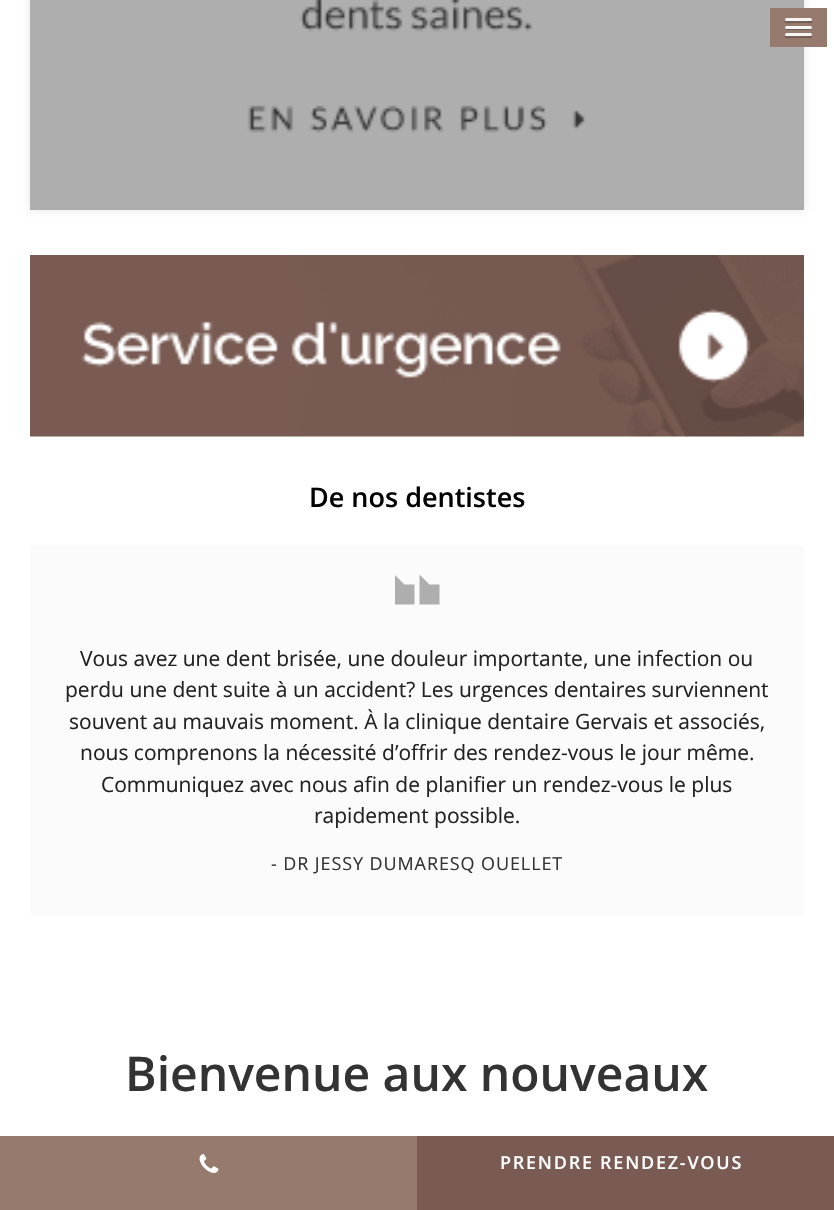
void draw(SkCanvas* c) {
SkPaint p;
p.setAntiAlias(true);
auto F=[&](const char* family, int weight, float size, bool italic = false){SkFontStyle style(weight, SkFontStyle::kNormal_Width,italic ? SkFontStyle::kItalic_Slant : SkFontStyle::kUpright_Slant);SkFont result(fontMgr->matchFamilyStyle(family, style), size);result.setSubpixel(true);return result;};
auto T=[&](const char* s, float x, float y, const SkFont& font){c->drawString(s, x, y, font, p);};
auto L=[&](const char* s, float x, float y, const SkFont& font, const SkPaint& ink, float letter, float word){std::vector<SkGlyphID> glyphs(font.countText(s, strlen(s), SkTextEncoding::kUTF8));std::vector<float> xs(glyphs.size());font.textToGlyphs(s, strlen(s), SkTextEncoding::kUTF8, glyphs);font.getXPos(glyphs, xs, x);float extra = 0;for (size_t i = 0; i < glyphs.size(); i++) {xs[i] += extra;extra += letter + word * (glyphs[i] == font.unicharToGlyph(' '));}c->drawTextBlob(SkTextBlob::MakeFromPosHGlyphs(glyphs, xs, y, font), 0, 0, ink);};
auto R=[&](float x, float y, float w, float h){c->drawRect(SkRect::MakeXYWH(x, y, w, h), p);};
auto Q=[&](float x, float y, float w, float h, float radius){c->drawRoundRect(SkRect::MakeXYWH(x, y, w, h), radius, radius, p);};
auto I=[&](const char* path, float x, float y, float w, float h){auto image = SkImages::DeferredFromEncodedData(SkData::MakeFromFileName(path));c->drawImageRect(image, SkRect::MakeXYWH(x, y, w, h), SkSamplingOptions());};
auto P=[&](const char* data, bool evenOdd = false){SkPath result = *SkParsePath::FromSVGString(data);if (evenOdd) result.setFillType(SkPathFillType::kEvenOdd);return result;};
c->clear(0xffffffff);
p.setColor(0x1a000000);
p.setMaskFilter(SkMaskFilter::MakeBlur(kNormal_SkBlurStyle, 4));
c->drawRect(SkRect::MakeXYWH(30,-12,774,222),p);
p.setMaskFilter(nullptr);
I("1.png",30,0,774,210);
p.setColor(0xff967a6e);
R(770,8,57,39);
p.setColor(0xff715c53);
c->drawPath(P("M785 21c-1.5 3 5.5 2 5.5 2h20.5c1-.5 1.5-2 .5-3l-1.5 1c-2 .5-24 .5-25 0z"),p);
p.setColor(0xfff5f5f5);
Q(785,18,27,3,1.5);
p.setColor(0xff715c53);
c->drawPath(P("M785 28c-.5 3 5 2 5.5 2h20c1.5 0 2-2 1-2.5l-1 1c-1.5 .5-25 0-25.5-.5z"),p);
p.setColor(0xfff5f5f5);
Q(785,26,27,3,1.5);
p.setColor(0xff715c53);
c->drawPath(P("M785 36c-1.5 3 5.5 2 5.5 2h20.5c1-.5 1.5-2 .5-3l-1.5 1c-2 .5-24 .5-25 0z"),p);
p.setColor(0xfff5f5f5);
Q(785,33,27,3,1.5);
I("2.png",30,255,774,182);
auto f1 = F("Open Sans",600,27);
p.setColor(0xff000000);
T("De nos dentistes",309,507,f1);
p.setColor(0xfffbfbfb);
R(30,545,774,370);
c->save();
c->clipRect(SkRect::MakeXYWH(395,575,45,30));
p.setColor(0xffaeaeaf);
c->drawPath(P("M394.5 604.5v-30l10 10h10v20z"),p);
c->restore();
c->drawPath(P("M419.5 604.5v-30l10 10h10v20z"),p);
auto f2 = F("Open Sans",400,21);
p.setColor(0xff222222);
T("Vous avez une dent brisée, une douleur importante, une infection ou",80,666,f2);
T("perdu une dent suite à un accident? Les urgences dentaires surviennent",65,697,f2);
T("souvent au mauvais moment. À la clinique dentaire Gervais et associés,",69,729,f2);
T("nous comprenons la nécessité d’offrir des rendez-vous le jour même.",80,760,f2);
T("Communiquez avec nous afin de planifier un rendez-vous le plus",101,792,f2);
T("rapidement possible.",314,823,f2);
auto f3 = F("Open Sans",400,18);
p.setColor(0xff333333);
L("- DR JESSY DUMARESQ OUELLET",271,870,f3,p,.9,0);
auto f4 = F("Open Sans",600,48);
T("Bienvenue aux nouveaux",125,1091,f4);
p.setColor(0xff967a6e);
R(0,1136,417,74);
I("3.png",199,1154,20,19);
p.setColor(0xff795b53);
R(417,1136,417,74);
auto f5 = F("Open Sans",600,18);
p.setColor(0xffffffff);
L("PRENDRE RENDEZ-VOUS",500,1169,f5,p,1.75,0);
}
